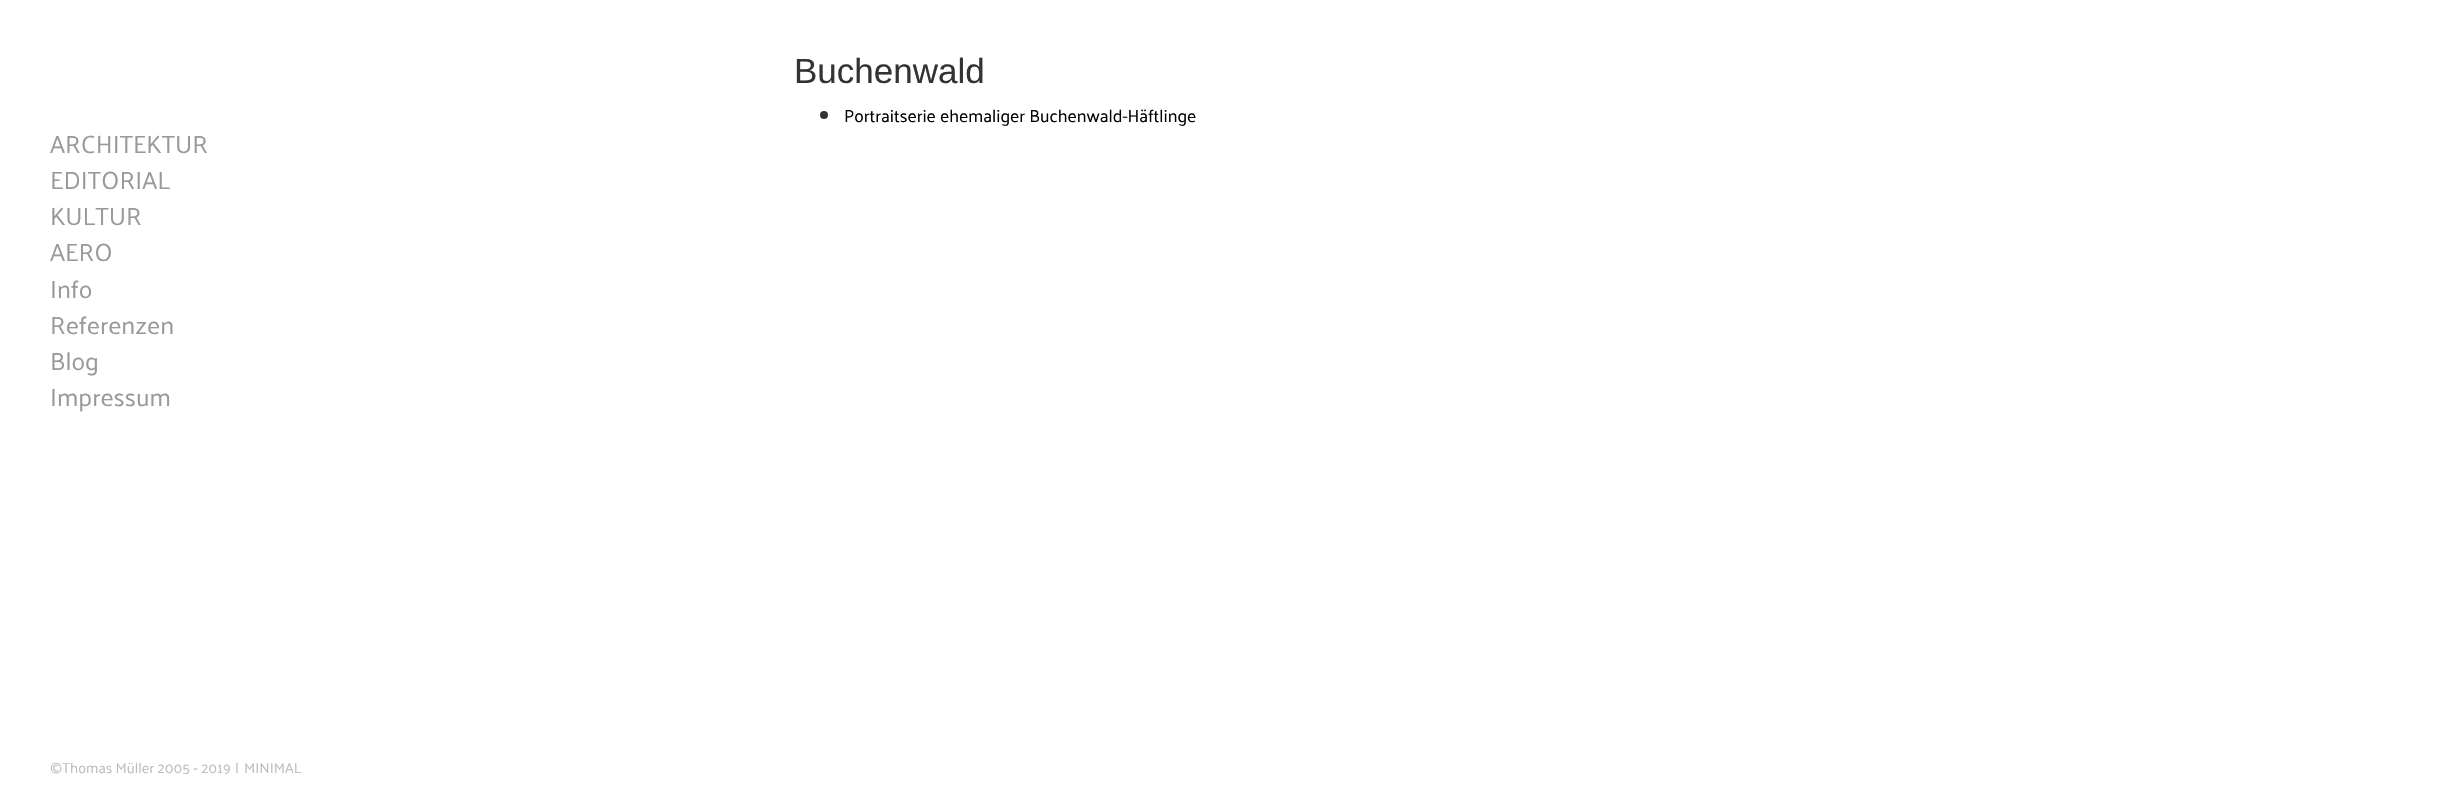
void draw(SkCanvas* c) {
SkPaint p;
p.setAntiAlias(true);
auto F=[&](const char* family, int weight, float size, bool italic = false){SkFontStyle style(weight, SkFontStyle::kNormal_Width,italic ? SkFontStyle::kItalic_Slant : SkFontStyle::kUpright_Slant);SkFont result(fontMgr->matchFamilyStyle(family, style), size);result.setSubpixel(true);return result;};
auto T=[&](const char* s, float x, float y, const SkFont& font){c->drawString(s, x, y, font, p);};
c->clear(0xffffffff);
auto f1 = F("Liberation Sans",400,35);
p.setColor(0xff333333);
T("Buchenwald",794,83,f1);
c->drawCircle(824,115,4,p);
auto f2 = F("Palanquin",400,17.5);
p.setColor(0xff000000);
T("Portraitserie ehemaliger Buchenwald-Häftlinge",844,122,f2);
auto f3 = F("Palanquin",400,25);
p.setColor(0xff999999);
T("ARCHITEKTUR",50,153,f3);
T("EDITORIAL",50,189,f3);
T("KULTUR",50,225,f3);
T("AERO",50,261,f3);
T("Info",50,298,f3);
T("Referenzen",50,334,f3);
T("Blog",50,370,f3);
T("Impressum",50,406,f3);
auto f4 = F("Palanquin",400,14.5);
p.setColor(0xffbdbdbd);
T("©Thomas Müller 2005 - 2019",50,773,f4);
T("|",235,773,f4);
T("MINIMAL",244,773,f4);
}
